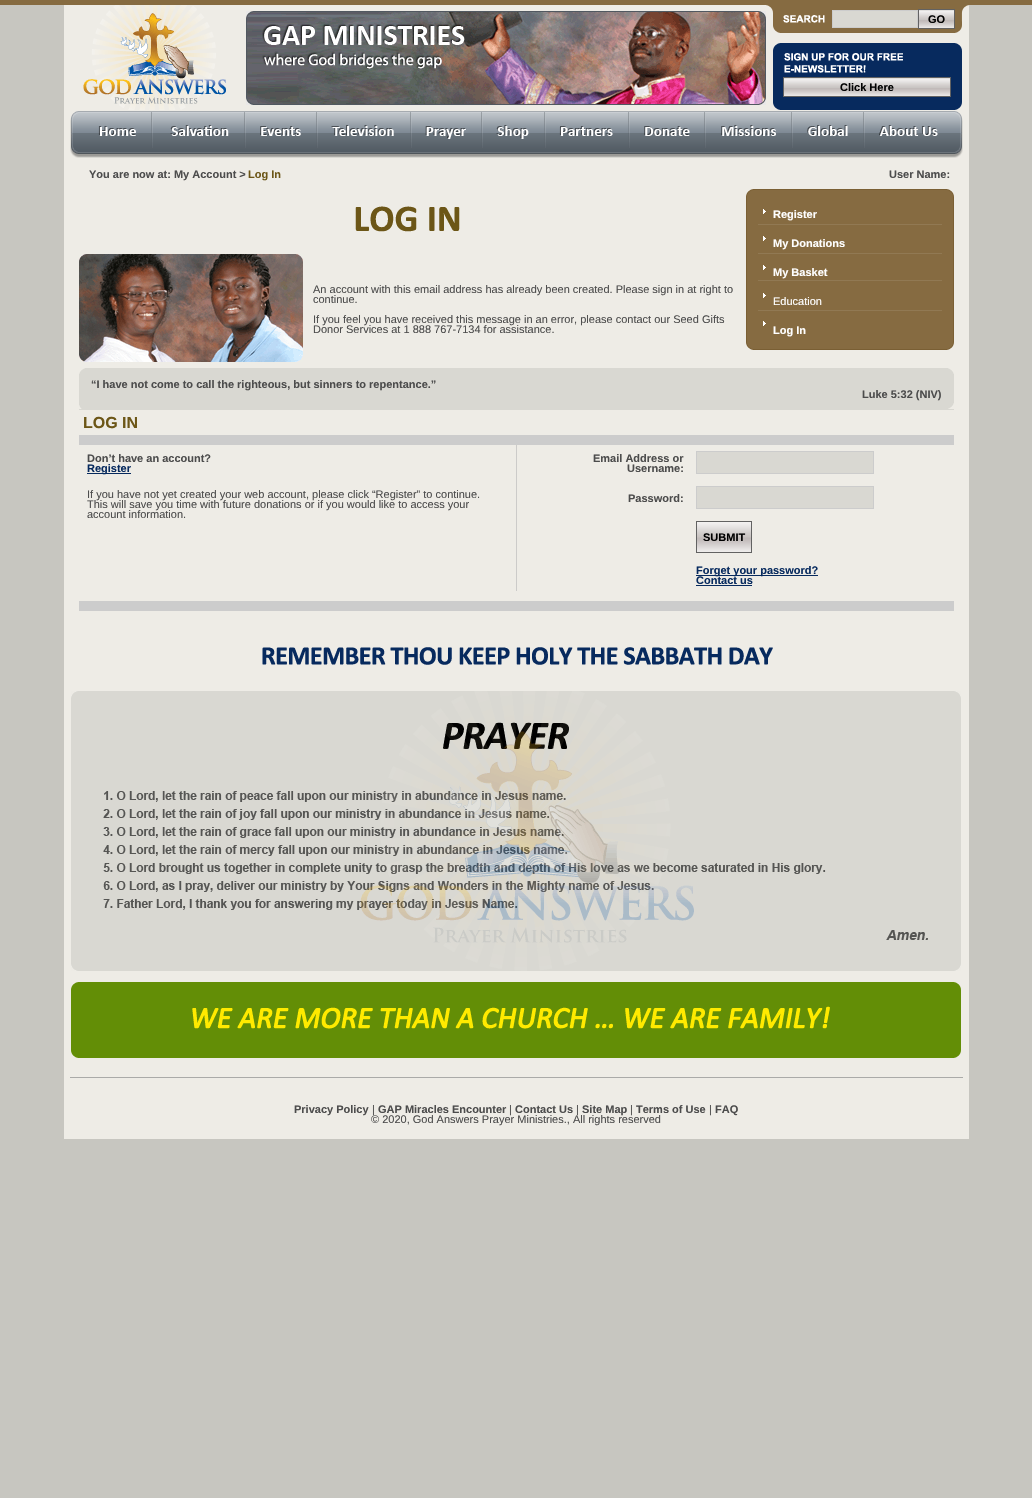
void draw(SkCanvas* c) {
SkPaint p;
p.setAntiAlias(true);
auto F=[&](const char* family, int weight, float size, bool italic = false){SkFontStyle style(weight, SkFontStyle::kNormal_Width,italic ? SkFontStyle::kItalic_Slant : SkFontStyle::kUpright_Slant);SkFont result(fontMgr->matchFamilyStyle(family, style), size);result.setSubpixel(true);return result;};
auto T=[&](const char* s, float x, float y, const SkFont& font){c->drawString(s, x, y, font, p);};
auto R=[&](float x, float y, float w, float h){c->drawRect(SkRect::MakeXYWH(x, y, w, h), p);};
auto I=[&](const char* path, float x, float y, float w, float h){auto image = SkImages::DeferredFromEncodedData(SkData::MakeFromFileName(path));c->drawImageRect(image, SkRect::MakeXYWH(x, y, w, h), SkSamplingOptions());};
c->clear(0xffc7c6c0);
p.setColor(0xff866b41);
R(0,0,1032,5);
p.setColor(0xffeeece6);
R(64,5,905,1134);
I("1.png",83,5,143,105);
I("2.png",246,11,520,94);
I("3.png",766,5,203,28);
p.setColor(0xffd9d8d2);
c->drawRect(SkRect::MakeXYWH(832.5,10.5,85,17),p);
p.setStroke(true);
p.setStrokeWidth(1);
p.setColor(0xffcccccc);
c->drawRect(SkRect::MakeXYWH(832.5,10.5,85,17),p);
I("4.png",919,10,35,18);
p.setColor(0xff626262);
c->drawRect(SkRect::MakeXYWH(918.5,9.5,36,19),p);
auto f1 = F("Liberation Sans",700,11);
p.setStroke(false);
p.setColor(0xff000000);
T("GO",928,23,f1);
I("5.png",773,43,189,67);
I("6.png",784,78,166,18);
p.setStroke(true);
p.setColor(0xff626262);
c->drawRect(SkRect::MakeXYWH(783.5,77.5,167,19),p);
p.setStroke(false);
p.setColor(0xff000000);
T("Click Here",840,91,f1);
I("7.png",70,111,82,47);
I("8.png",152,111,93,47);
I("9.png",245,111,72,47);
I("10.png",317,111,94,47);
I("11.png",411,111,71,47);
I("12.png",482,111,63,47);
I("13.png",545,111,84,47);
I("14.png",629,111,76,47);
I("15.png",705,111,87,47);
I("16.png",792,111,72,47);
I("17.png",864,111,99,47);
p.setColor(0xff4c4c4c);
T("You are now at: My Account >",89,178,f1);
p.setColor(0xff6c5617);
T("Log In",248,178,f1);
p.setColor(0xff4c4c4c);
T("User Name:",889,178,f1);
I("18.png",79,254,224,108);
auto f2 = F("Liberation Sans",400,11);
T("An account with this email address has already been created. Please sign in at right to",313,293,f2);
T("continue.",313,303,f2);
T("If you feel you have received this message in an error, please contact our Seed Gifts",313,323,f2);
T("Donor Services at 1 888 767-7134 for assistance.",313,333,f2);
I("19.png",355,206,105,26);
I("20.png",746,189,208,161);
p.setColor(0xffffffff);
T("Register",773,218,f1);
T("My Donations",773,247,f1);
T("My Basket",773,276,f1);
T("Education",773,305,f2);
T("Log In",773,334,f1);
p.setColor(0xffd9d8d2);
R(79,368,875,42);
I("21.png",79,368,6,6);
I("22.png",948,368,6,6);
p.setColor(0xff4c4c4c);
T("“I have not come to call the righteous, but sinners to repentance.”",91,388,f1);
T("Luke 5:32 (NIV)",862,398,f1);
I("23.png",79,405,3,4);
I("24.png",948,403,6,6);
auto f3 = F("Liberation Sans",700,16);
p.setColor(0xff6c5617);
T("LOG IN",83,428,f3);
p.setColor(0xffcccccc);
R(79,435,875,10);
p.setColor(0xff4c4c4c);
T("Don’t have an account?",87,462,f1);
p.setColor(0xff072a5e);
R(87,473,44,1);
T("Register",87,472,f1);
p.setColor(0xff4c4c4c);
T("If you have not yet created your web account, please click “Register” to continue.",87,498,f2);
T("This will save you time with future donations or if you would like to access your",87,508,f2);
T("account information.",87,518,f2);
p.setColor(0xffcccbc9);
R(516,445,1,146);
p.setColor(0xff4c4c4c);
T("Email Address or",593,462,f1);
T("Username:",627,472,f1);
p.setColor(0xffd9d8d2);
c->drawRect(SkRect::MakeXYWH(696.5,451.5,177,22),p);
p.setStroke(true);
p.setColor(0xffcccccc);
c->drawRect(SkRect::MakeXYWH(696.5,451.5,177,22),p);
p.setStroke(false);
p.setColor(0xff4c4c4c);
T("Password:",628,502,f1);
p.setColor(0xffd9d8d2);
c->drawRect(SkRect::MakeXYWH(696.5,486.5,177,22),p);
p.setStroke(true);
p.setColor(0xffcccccc);
c->drawRect(SkRect::MakeXYWH(696.5,486.5,177,22),p);
I("25.png",697,522,54,30);
p.setColor(0xff626262);
c->drawRect(SkRect::MakeXYWH(696.5,521.5,55,31),p);
p.setStroke(false);
p.setColor(0xff000000);
T("SUBMIT",703,541,f1);
p.setColor(0xff072a5e);
R(696,575,122,1);
T("Forget your password?",696,574,f1);
T("Contact us",696,584,f1);
R(696,585,56,1);
p.setColor(0xffcccccc);
R(79,601,875,10);
I("26.png",262,647,511,18);
I("27.png",71,691,890,280);
I("28.png",71,982,890,76);
p.setColor(0xffaaaaa8);
R(70,1077,893,1);
p.setColor(0xff4c4c4c);
T("Privacy Policy",294,1113,f1);
T("|",372,1113,f2);
T("GAP Miracles Encounter",378,1113,f1);
T("|",509,1113,f2);
T("Contact Us",515,1113,f1);
T("|",576,1113,f2);
T("Site Map",582,1113,f1);
T("|",630,1113,f2);
T("Terms of Use",636,1113,f1);
T("|",709,1113,f2);
T("FAQ",715,1113,f1);
T("© 2020, God Answers Prayer Ministries., All rights reserved",371,1123,f2);
}
